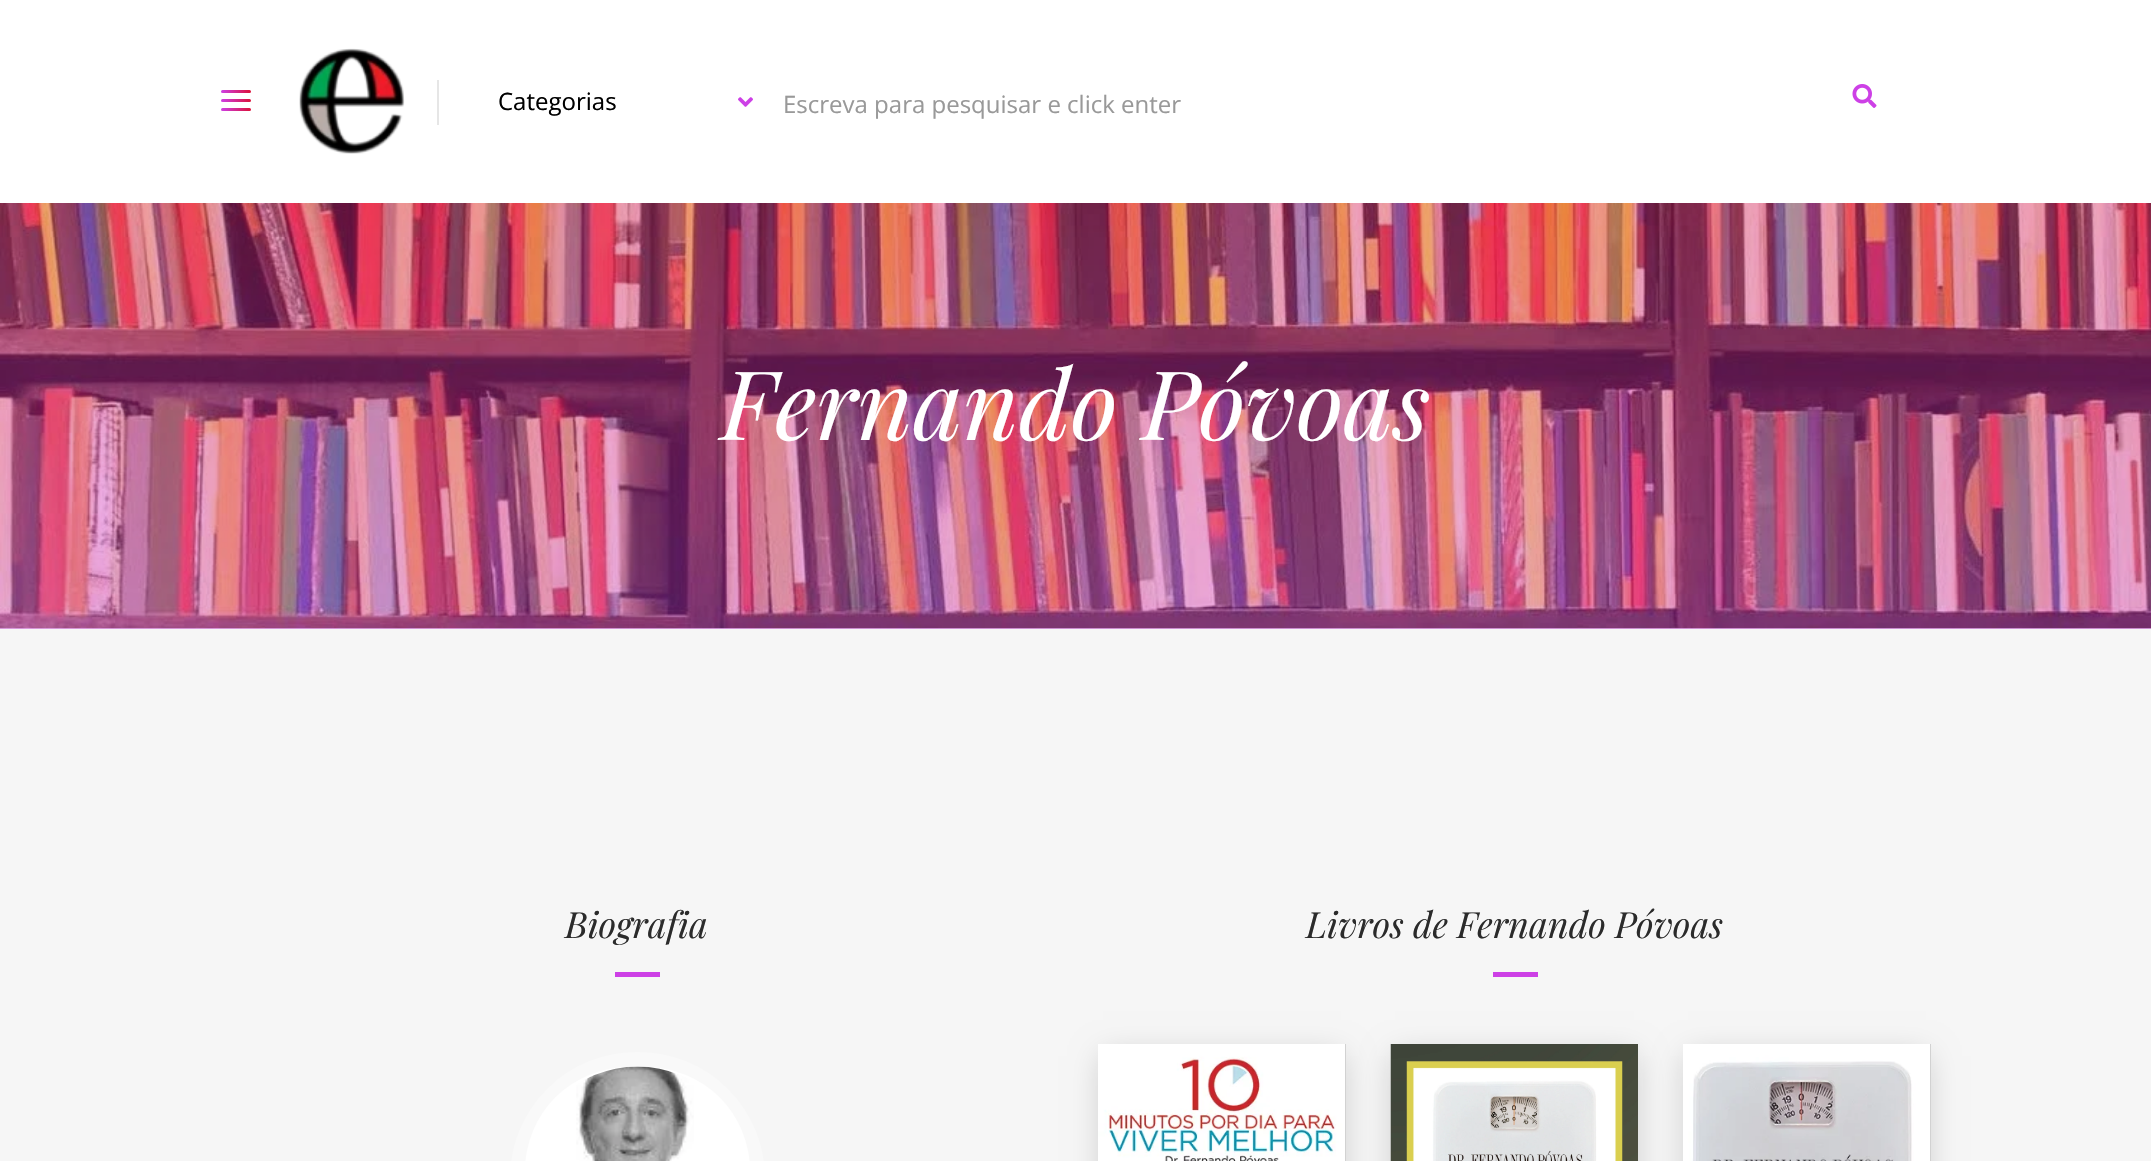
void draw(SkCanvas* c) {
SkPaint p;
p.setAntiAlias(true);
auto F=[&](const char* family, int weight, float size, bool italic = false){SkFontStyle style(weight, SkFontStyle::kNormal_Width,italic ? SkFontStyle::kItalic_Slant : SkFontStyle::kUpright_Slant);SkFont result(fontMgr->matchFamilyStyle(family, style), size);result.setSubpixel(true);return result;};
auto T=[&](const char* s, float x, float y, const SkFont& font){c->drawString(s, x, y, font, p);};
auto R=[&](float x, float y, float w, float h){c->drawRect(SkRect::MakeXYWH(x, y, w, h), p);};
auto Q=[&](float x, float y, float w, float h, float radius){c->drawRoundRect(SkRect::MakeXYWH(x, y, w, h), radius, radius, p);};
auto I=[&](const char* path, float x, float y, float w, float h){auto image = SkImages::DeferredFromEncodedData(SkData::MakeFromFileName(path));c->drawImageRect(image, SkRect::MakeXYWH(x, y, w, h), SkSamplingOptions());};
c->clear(0xfff6f6f6);
p.setColor(0xffffffff);
R(0,0,2151,203);
{
const SkColor colors[] = {0xffdb1037,0xffcd40e6};
const float stops[] = {0,1};
const SkPoint ends[] = {{251,101}, {221,101}};
p.setShader(SkGradientShader::MakeLinear(ends, colors, stops, 2, SkTileMode::kClamp));
p.setAlpha(255);
}
Q(221,99,30,3,1.5);
{
const SkColor colors[] = {0xffdb1037,0xffcd40e6};
const float stops[] = {0,1};
const SkPoint ends[] = {{251,92}, {221,92}};
p.setShader(SkGradientShader::MakeLinear(ends, colors, stops, 2, SkTileMode::kClamp));
p.setAlpha(255);
}
Q(221,90,30,3,1.5);
{
const SkColor colors[] = {0xffdb1037,0xffcd40e6};
const float stops[] = {0,1};
const SkPoint ends[] = {{251,110}, {221,110}};
p.setShader(SkGradientShader::MakeLinear(ends, colors, stops, 2, SkTileMode::kClamp));
p.setAlpha(255);
}
Q(221,108,30,3,1.5);
I("1.png",299,48,106,106);
p.setShader(nullptr);
p.setColor(0xffe6e6e6);
R(437,80,2,45);
auto f1 = F("Open Sans",400,24);
p.setColor(0xff000000);
T("Categorias",498,110,f1);
I("2.png",738,97,15,10);
p.setColor(0xff999999);
T("Escreva para pesquisar e click enter",783,113,f1);
I("3.png",1852,84,25,24);
I("4.png",0,203,2151,426);
{
const SkColor colors[] = {0x66db1037,0x66cd40e6};
const float stops[] = {0,1};
const SkPoint ends[] = {{1076,-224}, {1076,629}};
p.setShader(SkGradientShader::MakeLinear(ends, colors, stops, 2, SkTileMode::kClamp));
p.setAlpha(255);
}
R(0,203,2151,426);
auto f2 = F("Playfair Display",400,96,true);
p.setShader(nullptr);
p.setColor(0xffffffff);
T("Fernando Póvoas",721,440,f2);
auto f3 = F("Playfair Display",400,36,true);
p.setColor(0xff2b2b2b);
T("Biografia",565,938,f3);
p.setColor(0xffcd40e6);
R(615,972,45,5);
p.setStroke(true);
p.setStrokeWidth(15);
p.setColor(0xfff9f9f9);
c->drawRoundRect(SkRect::MakeXYWH(517.5,1059.5,240,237),120,120,p);
p.setStroke(false);
p.setColor(0xffffffff);
Q(525,1067,225,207,112.5);
I("5.png",576,1066,118,95);
p.setColor(0xff2b2b2b);
T("Livros de Fernando Póvoas",1306,938,f3);
p.setColor(0xffcd40e6);
R(1493,972,45,5);
p.setColor(0x33000000);
p.setMaskFilter(SkMaskFilter::MakeBlur(kNormal_SkBlurStyle, 15));
c->drawRect(SkRect::MakeXYWH(1103,1056,238,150),p);
p.setMaskFilter(nullptr);
p.setColor(0xffc3c3c3);
R(1345,1044,1,117);
I("6.png",1098,1044,248,117);
p.setColor(0x33000000);
p.setMaskFilter(SkMaskFilter::MakeBlur(kNormal_SkBlurStyle, 15));
c->drawRect(SkRect::MakeXYWH(1395,1056,239,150),p);
p.setMaskFilter(nullptr);
I("7.png",1390,1044,248,117);
p.setMaskFilter(SkMaskFilter::MakeBlur(kNormal_SkBlurStyle, 15));
c->drawRect(SkRect::MakeXYWH(1688,1056,238,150),p);
p.setMaskFilter(nullptr);
p.setColor(0xffc3c3c3);
R(1930,1044,1,117);
I("8.png",1683,1044,248,117);
}
